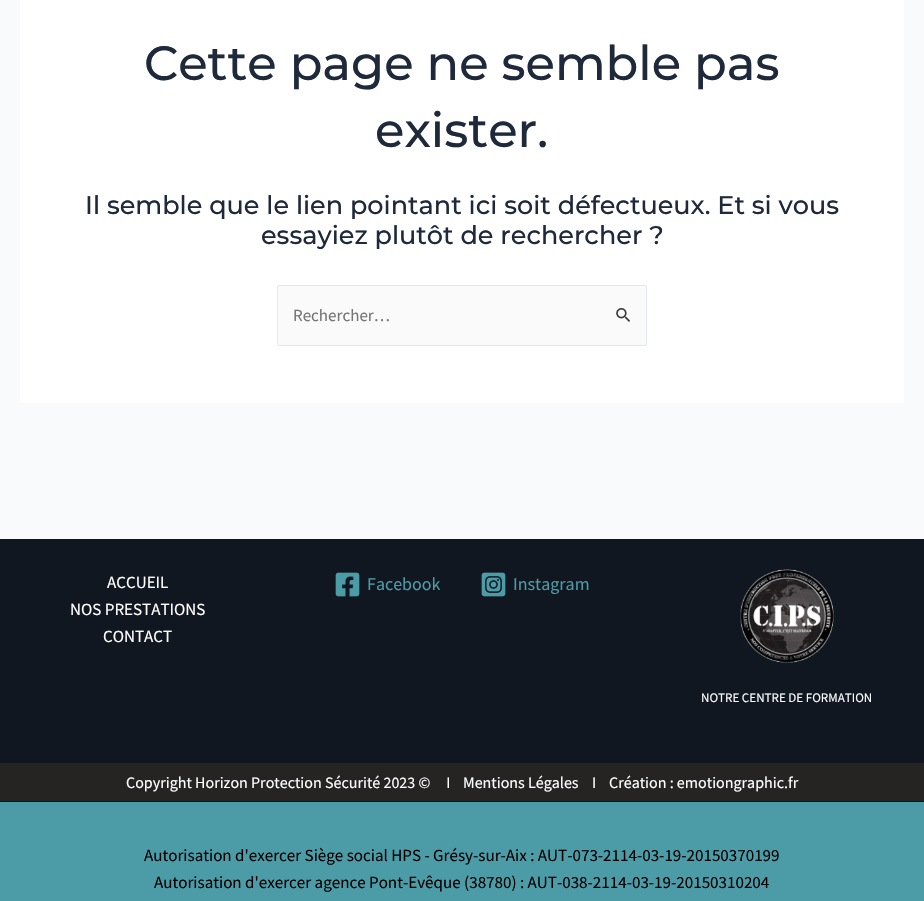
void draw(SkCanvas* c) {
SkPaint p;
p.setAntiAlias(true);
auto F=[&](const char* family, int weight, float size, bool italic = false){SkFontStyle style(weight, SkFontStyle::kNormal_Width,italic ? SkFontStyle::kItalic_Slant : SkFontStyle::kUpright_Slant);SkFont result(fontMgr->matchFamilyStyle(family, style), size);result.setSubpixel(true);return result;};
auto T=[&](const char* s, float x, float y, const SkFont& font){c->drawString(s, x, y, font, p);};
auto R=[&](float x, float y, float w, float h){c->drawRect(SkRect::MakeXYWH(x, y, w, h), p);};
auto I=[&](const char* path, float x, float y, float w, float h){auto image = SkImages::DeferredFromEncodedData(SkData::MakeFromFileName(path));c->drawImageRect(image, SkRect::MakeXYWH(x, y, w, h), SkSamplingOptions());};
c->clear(0xfff9fafb);
p.setColor(0xffffffff);
R(20,0,884,403);
auto f1 = F("Montserrat",500,48);
p.setColor(0xff1e293b);
T("Cette page ne semble pas",144,80,f1);
T("exister.",375,147,f1);
auto f2 = F("Montserrat",500,25.5);
T("Il semble que le lien pointant ici soit défectueux. Et si vous",85,214,f2);
T("essayiez plutôt de rechercher ?",261,244,f2);
p.setColor(0xfffafafa);
c->drawRoundRect(SkRect::MakeXYWH(277.5,285.5,369,60),1.5,1.5,p);
p.setStroke(true);
p.setStrokeWidth(1);
p.setColor(0xffe2e8f0);
c->drawRoundRect(SkRect::MakeXYWH(277.5,285.5,369,60),1.5,1.5,p);
auto f3 = F("Source Sans Pro",400,17);
p.setStroke(false);
p.setColor(0xff757575);
T("Rechercher…",293,321,f3);
I("1.png",616,308,14,14);
p.setColor(0xff101720);
R(0,539,924,224);
p.setColor(0xffffffff);
T("ACCUEIL",107,588,f3);
T("NOS PRESTATIONS",70,615,f3);
T("CONTACT",103,642,f3);
I("2.png",335,572,25,25);
auto f4 = F("Source Sans Pro",400,18);
p.setColor(0xff4c9ca8);
T("Facebook",367,590,f4);
I("3.png",481,572,25,25);
T("Instagram",513,590,f4);
I("4.png",740,569,94,94);
auto f5 = F("Source Sans Pro",400,13);
p.setColor(0xfff9fafb);
T("NOTRE CENTRE DE FORMATION",701,702,f5);
p.setColor(0xff262323);
R(0,763,924,38);
auto f6 = F("Source Sans Pro",400,16);
p.setColor(0xffffffff);
T("Copyright Horizon Protection Sécurité 2023 ©     I",126,788,f6);
T("Mentions Légales",463,788,f6);
T("I    Création : emotiongraphic.fr",592,788,f6);
p.setColor(0xff4c9ca8);
R(0,802,924,99);
p.setColor(0xff101720);
R(0,801,924,1);
p.setColor(0xff000000);
T("Autorisation d'exercer Siège social HPS - Grésy-sur-Aix : AUT-073-2114-03-19-20150370199",144,861,f3);
T("Autorisation d'exercer agence Pont-Evêque (38780) : AUT-038-2114-03-19-20150310204",154,888,f3);
}
